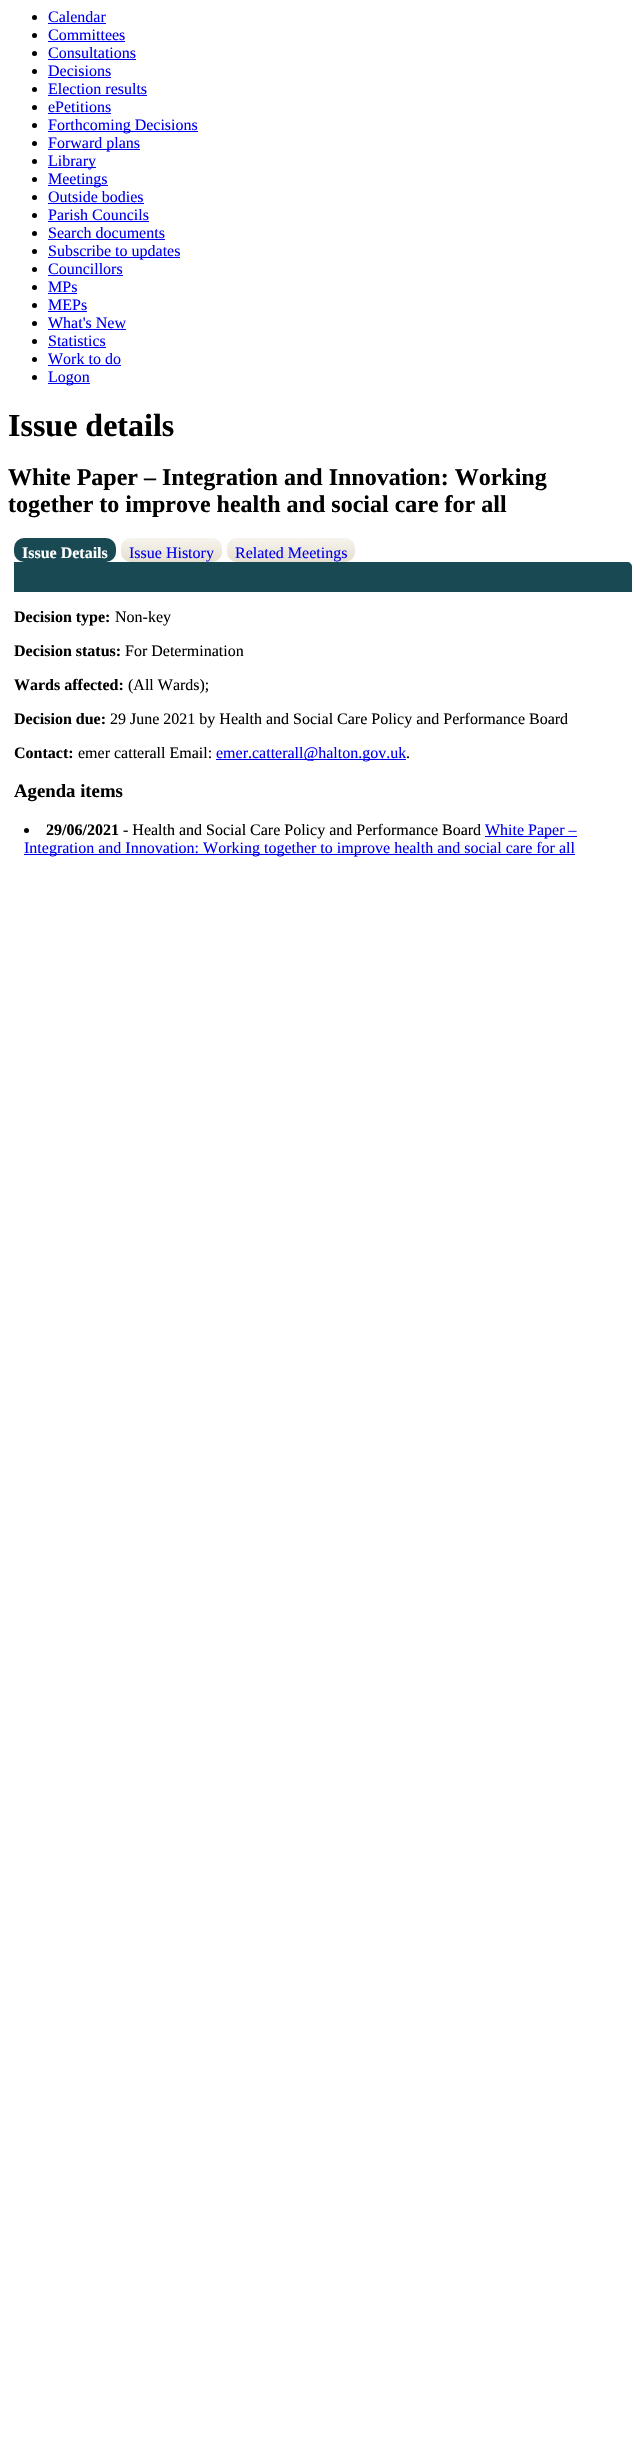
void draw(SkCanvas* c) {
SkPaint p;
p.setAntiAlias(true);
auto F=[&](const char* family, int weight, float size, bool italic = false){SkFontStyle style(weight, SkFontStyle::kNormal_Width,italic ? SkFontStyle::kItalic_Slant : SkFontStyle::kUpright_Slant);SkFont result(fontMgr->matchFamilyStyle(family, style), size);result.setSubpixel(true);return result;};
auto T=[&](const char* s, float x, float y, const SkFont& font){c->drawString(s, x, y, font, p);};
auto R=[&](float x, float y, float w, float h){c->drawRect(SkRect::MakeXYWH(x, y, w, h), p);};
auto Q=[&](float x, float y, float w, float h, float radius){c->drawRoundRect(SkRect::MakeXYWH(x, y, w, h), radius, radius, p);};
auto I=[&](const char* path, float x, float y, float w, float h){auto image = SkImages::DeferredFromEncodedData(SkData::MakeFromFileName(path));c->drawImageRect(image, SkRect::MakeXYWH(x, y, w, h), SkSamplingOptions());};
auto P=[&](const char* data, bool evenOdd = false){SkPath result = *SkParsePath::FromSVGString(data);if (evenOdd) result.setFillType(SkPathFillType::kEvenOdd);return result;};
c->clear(0xffffffff);
p.setColor(0xff000000);
c->drawCircle(34.5,17.5,2.5,p);
auto f1 = F("Liberation Serif",400,16);
p.setColor(0xff0000ee);
T("Calendar",48,22,f1);
R(48,23,58,1);
p.setColor(0xff000000);
c->drawCircle(34.5,35.5,2.5,p);
p.setColor(0xff0000ee);
T("Committees",48,40,f1);
R(48,41,77,1);
p.setColor(0xff000000);
c->drawCircle(34.5,53.5,2.5,p);
p.setColor(0xff0000ee);
T("Consultations",48,58,f1);
R(48,59,88,1);
p.setColor(0xff000000);
c->drawCircle(34.5,71.5,2.5,p);
p.setColor(0xff0000ee);
T("Decisions",48,76,f1);
R(48,77,63,1);
p.setColor(0xff000000);
c->drawCircle(34.5,89.5,2.5,p);
p.setColor(0xff0000ee);
T("Election results",48,94,f1);
R(48,95,99,1);
p.setColor(0xff000000);
c->drawCircle(34.5,107.5,2.5,p);
p.setColor(0xff0000ee);
T("ePetitions",48,112,f1);
R(48,113,63,1);
p.setColor(0xff000000);
c->drawCircle(34.5,125.5,2.5,p);
p.setColor(0xff0000ee);
R(48,131,150,1);
T("Forthcoming Decisions",48,130,f1);
p.setColor(0xff000000);
c->drawCircle(34.5,143.5,2.5,p);
p.setColor(0xff0000ee);
R(48,149,92,1);
T("Forward plans",48,148,f1);
p.setColor(0xff000000);
c->drawCircle(34.5,161.5,2.5,p);
p.setColor(0xff0000ee);
R(48,167,48,1);
T("Library",48,166,f1);
p.setColor(0xff000000);
c->drawCircle(34.5,179.5,2.5,p);
p.setColor(0xff0000ee);
R(48,185,60,1);
T("Meetings",48,184,f1);
p.setColor(0xff000000);
c->drawCircle(34.5,197.5,2.5,p);
p.setColor(0xff0000ee);
T("Outside bodies",48,202,f1);
R(48,203,96,1);
p.setColor(0xff000000);
c->drawCircle(34.5,215.5,2.5,p);
p.setColor(0xff0000ee);
T("Parish Councils",48,220,f1);
R(48,221,101,1);
p.setColor(0xff000000);
c->drawCircle(34.5,233.5,2.5,p);
p.setColor(0xff0000ee);
T("Search documents",48,238,f1);
R(48,239,117,1);
p.setColor(0xff000000);
c->drawCircle(34.5,251.5,2.5,p);
p.setColor(0xff0000ee);
R(48,257,132,1);
T("Subscribe to updates",48,256,f1);
p.setColor(0xff000000);
c->drawCircle(34.5,269.5,2.5,p);
p.setColor(0xff0000ee);
T("Councillors",48,274,f1);
R(48,275,75,1);
p.setColor(0xff000000);
c->drawCircle(34.5,287.5,2.5,p);
p.setColor(0xff0000ee);
T("MPs",48,292,f1);
R(48,293,29,1);
p.setColor(0xff000000);
c->drawCircle(34.5,305.5,2.5,p);
p.setColor(0xff0000ee);
T("MEPs",48,310,f1);
R(48,311,39,1);
p.setColor(0xff000000);
c->drawCircle(34.5,323.5,2.5,p);
p.setColor(0xff0000ee);
T("What's New",48,328,f1);
R(48,329,78,1);
p.setColor(0xff000000);
c->drawCircle(34.5,341.5,2.5,p);
p.setColor(0xff0000ee);
T("Statistics",48,346,f1);
R(48,347,58,1);
p.setColor(0xff000000);
c->drawCircle(34.5,359.5,2.5,p);
p.setColor(0xff0000ee);
T("Work to do",48,364,f1);
R(48,365,73,1);
p.setColor(0xff000000);
c->drawCircle(34.5,377.5,2.5,p);
p.setColor(0xff0000ee);
R(48,383,42,1);
T("Logon",48,382,f1);
auto f2 = F("Liberation Serif",700,32);
p.setColor(0xff000000);
T("Issue details",8,436,f2);
auto f3 = F("Liberation Serif",700,24);
T("White Paper – Integration and Innovation: Working",8,485,f3);
T("together to improve health and social care for all",8,512,f3);
p.setColor(0xff194953);
Q(14,538,102,24,10);
auto f4 = F("Liberation Serif",700,16);
p.setColor(0xffffffff);
T("Issue Details",22,558,f4);
p.setColor(0xfff3f3f3);
Q(121,538,101,24,10);
I("1.png",121,538,101,24);
p.setColor(0xff0000ee);
T("Issue History",129,558,f1);
p.setColor(0xfff3f3f3);
Q(227,538,128,24,10);
I("2.png",227,538,128,24);
p.setColor(0xff0000ee);
T("Related Meetings",235,558,f1);
p.setColor(0xff194953);
c->drawPath(P("M14 562h613c3 0 5 2 5 5v25h-618z"),p);
p.setColor(0xff000000);
T("Decision type:",14,622,f4);
T("Non-key",115,622,f1);
T("Decision status:",14,656,f4);
T("For Determination",125,656,f1);
T("Wards affected:",14,690,f4);
T("(All Wards);",128,690,f1);
T("Decision due:",14,724,f4);
T("29 June 2021 by Health and Social Care Policy and Performance Board",110,724,f1);
T("Contact:",14,758,f4);
T("emer catterall Email:",78,758,f1);
p.setColor(0xff0000ee);
R(216,759,190,1);
T("emer.catterall@halton.gov.uk",216,758,f1);
p.setColor(0xff000000);
T(".",406,758,f1);
auto f5 = F("Liberation Serif",700,18.75);
T("Agenda items",14,797,f5);
c->drawCircle(26.5,830.5,2.5,p);
T("29/06/2021",46,835,f4);
T("- Health and Social Care Policy and Performance Board",123,835,f1);
p.setColor(0xff0000ee);
R(485,836,92,1);
T("White Paper –",485,835,f1);
R(24,854,551,1);
T("Integration and Innovation: Working together to improve health and social care for all",24,853,f1);
}
